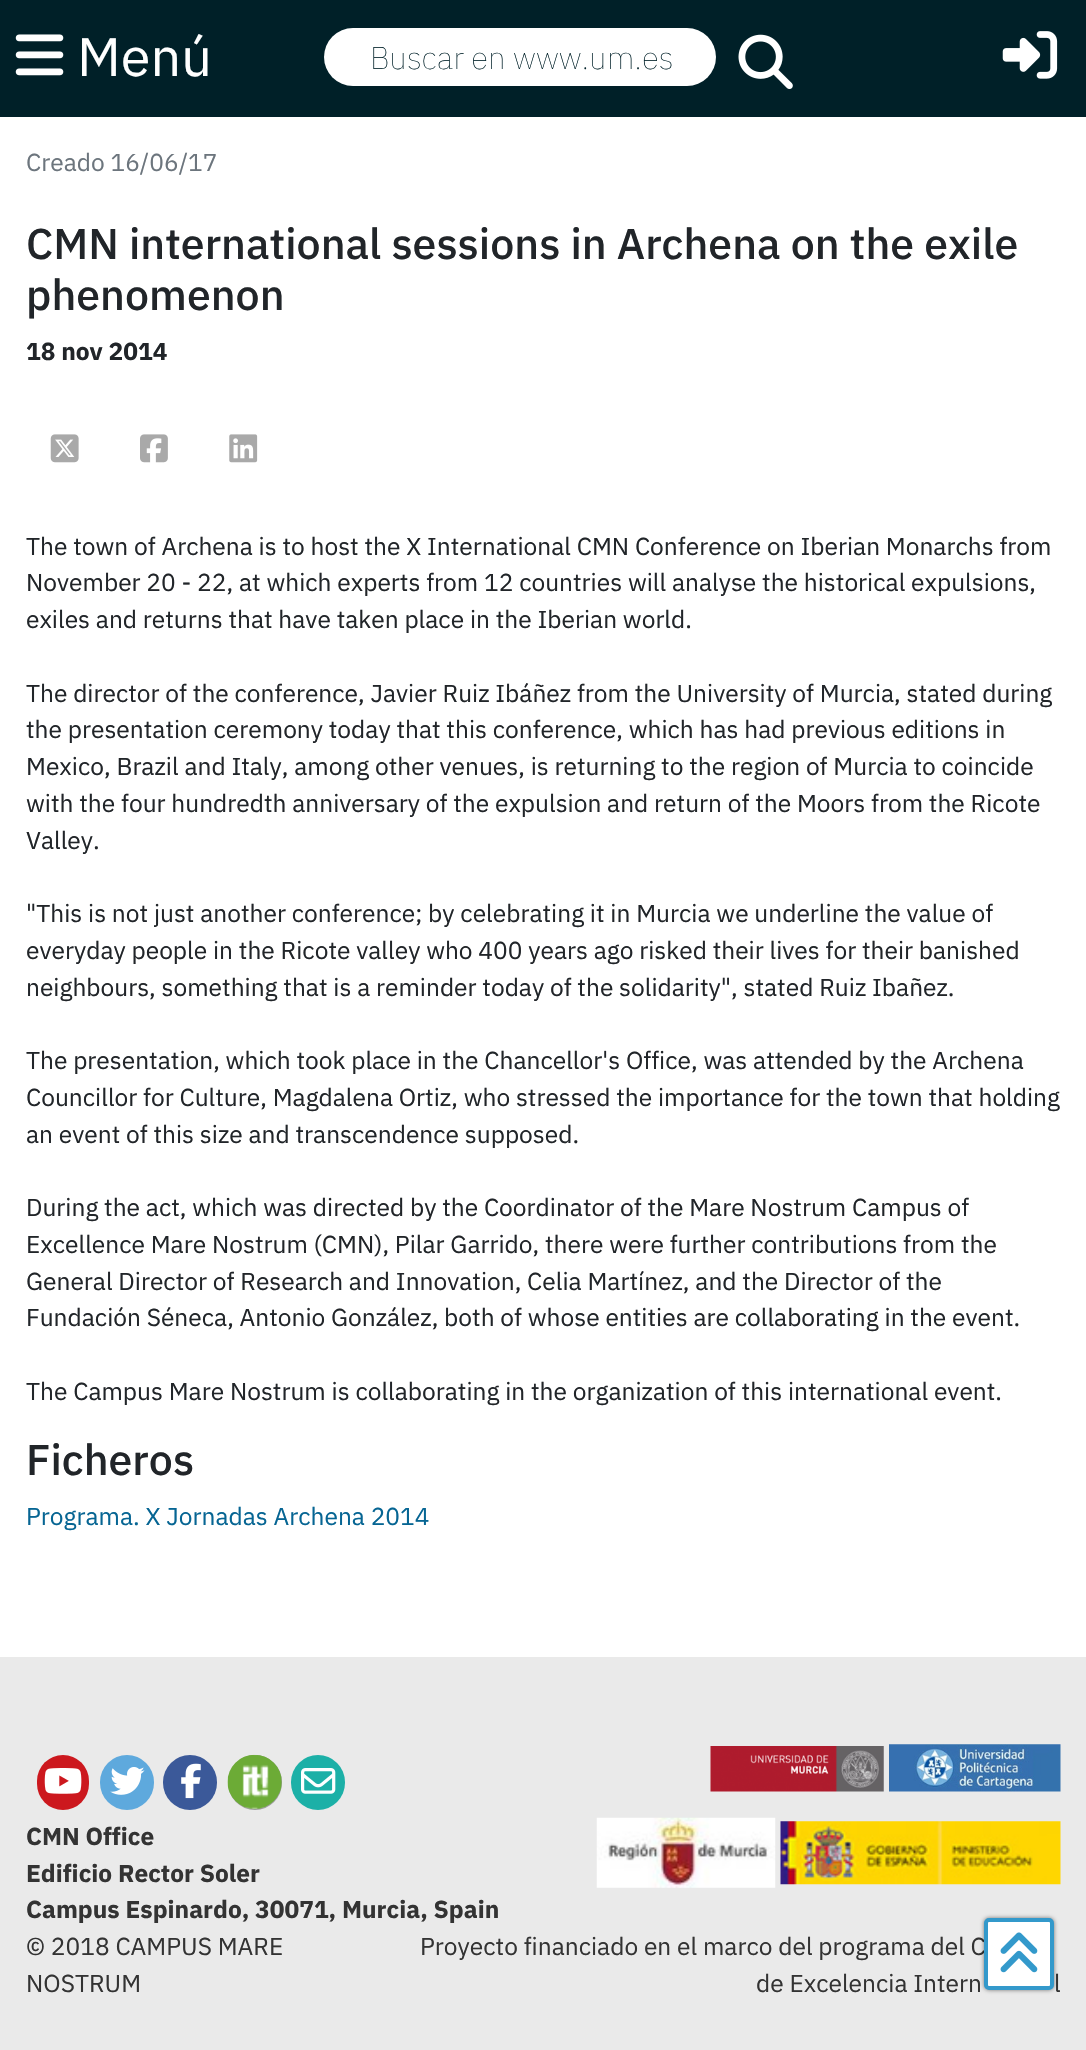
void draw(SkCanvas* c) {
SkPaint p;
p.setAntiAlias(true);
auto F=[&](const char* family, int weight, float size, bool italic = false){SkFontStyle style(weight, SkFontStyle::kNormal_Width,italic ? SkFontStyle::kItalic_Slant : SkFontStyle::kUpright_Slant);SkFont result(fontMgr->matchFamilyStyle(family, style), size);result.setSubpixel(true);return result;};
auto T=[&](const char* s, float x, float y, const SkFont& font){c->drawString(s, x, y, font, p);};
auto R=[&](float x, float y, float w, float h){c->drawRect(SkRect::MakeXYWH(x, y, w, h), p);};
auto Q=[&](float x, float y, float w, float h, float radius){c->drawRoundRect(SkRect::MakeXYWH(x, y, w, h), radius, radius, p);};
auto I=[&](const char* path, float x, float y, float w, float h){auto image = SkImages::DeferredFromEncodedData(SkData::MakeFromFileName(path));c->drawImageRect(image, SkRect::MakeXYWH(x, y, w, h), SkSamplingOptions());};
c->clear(0xffffffff);
p.setColor(0xff002028);
R(0,0,1086,117);
I("1.png",15,34,49,42);
auto f1 = F("IBM Plex Sans",400,54);
p.setColor(0xffffffff);
T("Menú",77,76,f1);
Q(324,28,392,58,29);
auto f2 = F("IBM Plex Sans",100,31.5);
p.setColor(0xff002028);
T("Buscar en www.um.es",370,69,f2);
I("2.png",738,34,55,55);
I("3.png",1002,31,56,48);
auto f3 = F("IBM Plex Sans",400,24.5);
p.setColor(0xff6c757d);
T("Creado 16/06/17",26,171,f3);
auto f4 = F("IBM Plex Sans",500,42.9);
p.setColor(0xff212529);
T("CMN international sessions in Archena on the exile",26,259,f4);
T("phenomenon",26,310,f4);
auto f5 = F("IBM Plex Sans",700,24.5);
T("18 nov 2014",26,360,f5);
I("4.png",50,434,29,29);
I("5.png",140,434,28,29);
I("6.png",229,434,29,29);
T("The town of Archena is to host the X International CMN Conference on Iberian Monarchs from",26,555,f3);
T("November 20 - 22, at which experts from 12 countries will analyse the historical expulsions,",26,591,f3);
T("exiles and returns that have taken place in the Iberian world.",26,628,f3);
T("The director of the conference, Javier Ruiz Ibáñez from the University of Murcia, stated during",26,702,f3);
T("the presentation ceremony today that this conference, which has had previous editions in",26,738,f3);
T("Mexico, Brazil and Italy, among other venues, is returning to the region of Murcia to coincide",26,775,f3);
T("with the four hundredth anniversary of the expulsion and return of the Moors from the Ricote",26,812,f3);
T("Valley.",26,849,f3);
T("\"This is not just another conference; by celebrating it in Murcia we underline the value of",26,922,f3);
T("everyday people in the Ricote valley who 400 years ago risked their lives for their banished",26,959,f3);
T("neighbours, something that is a reminder today of the solidarity\", stated Ruiz Ibañez.",26,996,f3);
T("The presentation, which took place in the Chancellor's Office, was attended by the Archena",26,1069,f3);
T("Councillor for Culture, Magdalena Ortiz, who stressed the importance for the town that holding",26,1106,f3);
T("an event of this size and transcendence supposed.",26,1143,f3);
T("During the act, which was directed by the Coordinator of the Mare Nostrum Campus of",26,1216,f3);
T("Excellence Mare Nostrum (CMN), Pilar Garrido, there were further contributions from the",26,1253,f3);
T("General Director of Research and Innovation, Celia Martínez, and the Director of the",26,1290,f3);
T("Fundación Séneca, Antonio González, both of whose entities are collaborating in the event.",26,1326,f3);
T("The Campus Mare Nostrum is collaborating in the organization of this international event.",26,1400,f3);
T("Ficheros",26,1475,f4);
p.setColor(0xff066593);
T("Programa. X Jornadas Archena 2014",26,1525,f3);
p.setColor(0xffeaeaea);
R(0,1657,1086,393);
p.setColor(0xffcc181e);
Q(37,1755,52,55,26);
I("7.png",44,1768,38,26);
p.setColor(0xff5ea9dd);
Q(100,1755,54,55,27);
I("8.png",110,1767,35,28);
p.setColor(0xff3b5999);
Q(163,1755,54,55,27);
I("9.png",181,1763,20,36);
p.setColor(0xff9c9c9c);
Q(228,1755,54,55,27);
I("10.png",227,1754,55,55);
p.setColor(0xff1cb0a7);
Q(291,1755,54,55,27);
I("11.png",301,1768,35,26);
I("12.png",710,1746,174,46);
I("13.png",889,1744,172,48);
p.setColor(0xff333333);
T("CMN Office",26,1845,f5);
T("Edificio Rector Soler",26,1882,f5);
T("Campus Espinardo, 30071, Murcia, Spain",26,1918,f5);
I("14.png",596,1817,180,71);
I("15.png",780,1821,281,64);
T("© 2018 CAMPUS MARE",26,1955,f3);
T("NOSTRUM",26,1992,f3);
T("Proyecto financiado en el marco del programa del C",420,1955,f3);
T("de Excelencia Intern",756,1992,f3);
T("l",1054,1992,f3);
p.setColor(0x80000000);
p.setMaskFilter(SkMaskFilter::MakeBlur(kNormal_SkBlurStyle, 2));
c->drawRoundRect(SkRect::MakeXYWH(984,1918,70,72),5,5,p);
p.setMaskFilter(nullptr);
p.setColor(0xffffffff);
c->drawRoundRect(SkRect::MakeXYWH(986,1920,66,68),3,3,p);
p.setStroke(true);
p.setStrokeWidth(4);
p.setColor(0xff3399cb);
c->drawRoundRect(SkRect::MakeXYWH(986,1920,66,68),3,3,p);
I("16.png",1000,1932,38,41);
}
